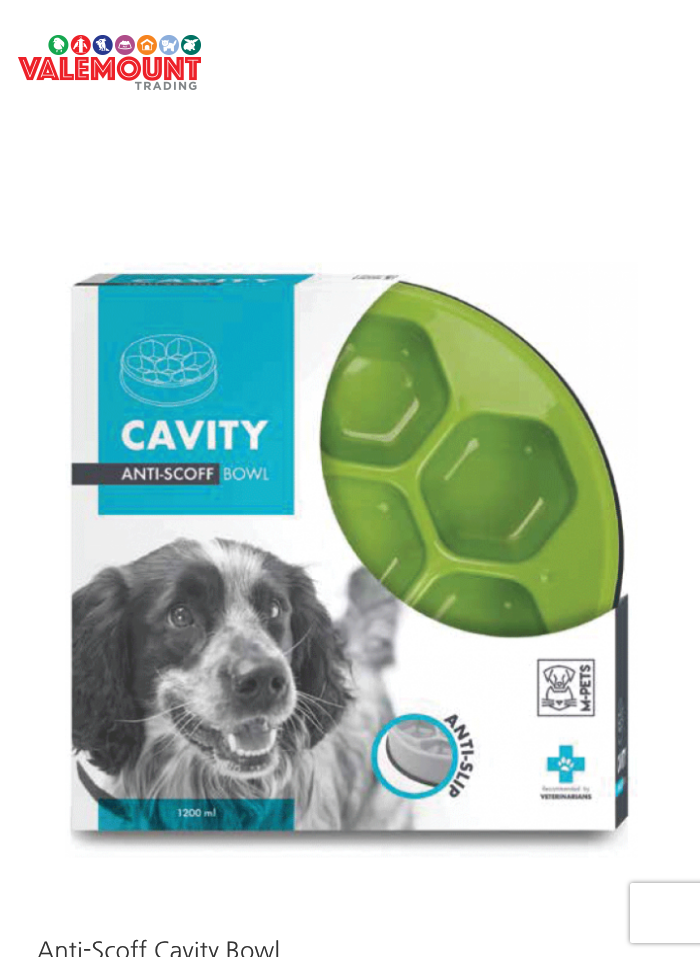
void draw(SkCanvas* c) {
SkPaint p;
p.setAntiAlias(true);
auto F=[&](const char* family, int weight, float size, bool italic = false){SkFontStyle style(weight, SkFontStyle::kNormal_Width,italic ? SkFontStyle::kItalic_Slant : SkFontStyle::kUpright_Slant);SkFont result(fontMgr->matchFamilyStyle(family, style), size);result.setSubpixel(true);return result;};
auto T=[&](const char* s, float x, float y, const SkFont& font){c->drawString(s, x, y, font, p);};
auto I=[&](const char* path, float x, float y, float w, float h){auto image = SkImages::DeferredFromEncodedData(SkData::MakeFromFileName(path));c->drawImageRect(image, SkRect::MakeXYWH(x, y, w, h), SkSamplingOptions());};
auto P=[&](const char* data, bool evenOdd = false){SkPath result = *SkParsePath::FromSVGString(data);if (evenOdd) result.setFillType(SkPathFillType::kEvenOdd);return result;};
c->clear(0xffffffff);
I("1.png",18,35,183,55);
I("2.png",65,262,573,596);
auto f1 = F("NanumGothic",400,23.6);
p.setColor(0xff333333);
T("Anti-Scoff Cavity Bowl",37,959,f1);
c->save();
c->clipPath(P("M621 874h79v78h-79zm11 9h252c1 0 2 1 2 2v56c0 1-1 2-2 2h-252c-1 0-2-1-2-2v-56c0-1 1-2 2-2z",true),true);
p.setColor(0xff808080);
p.setMaskFilter(SkMaskFilter::MakeBlur(kNormal_SkBlurStyle, 2.5));
c->drawRoundRect(SkRect::MakeXYWH(630,883,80,60),2,2,p);
p.setMaskFilter(nullptr);
c->restore();
}
